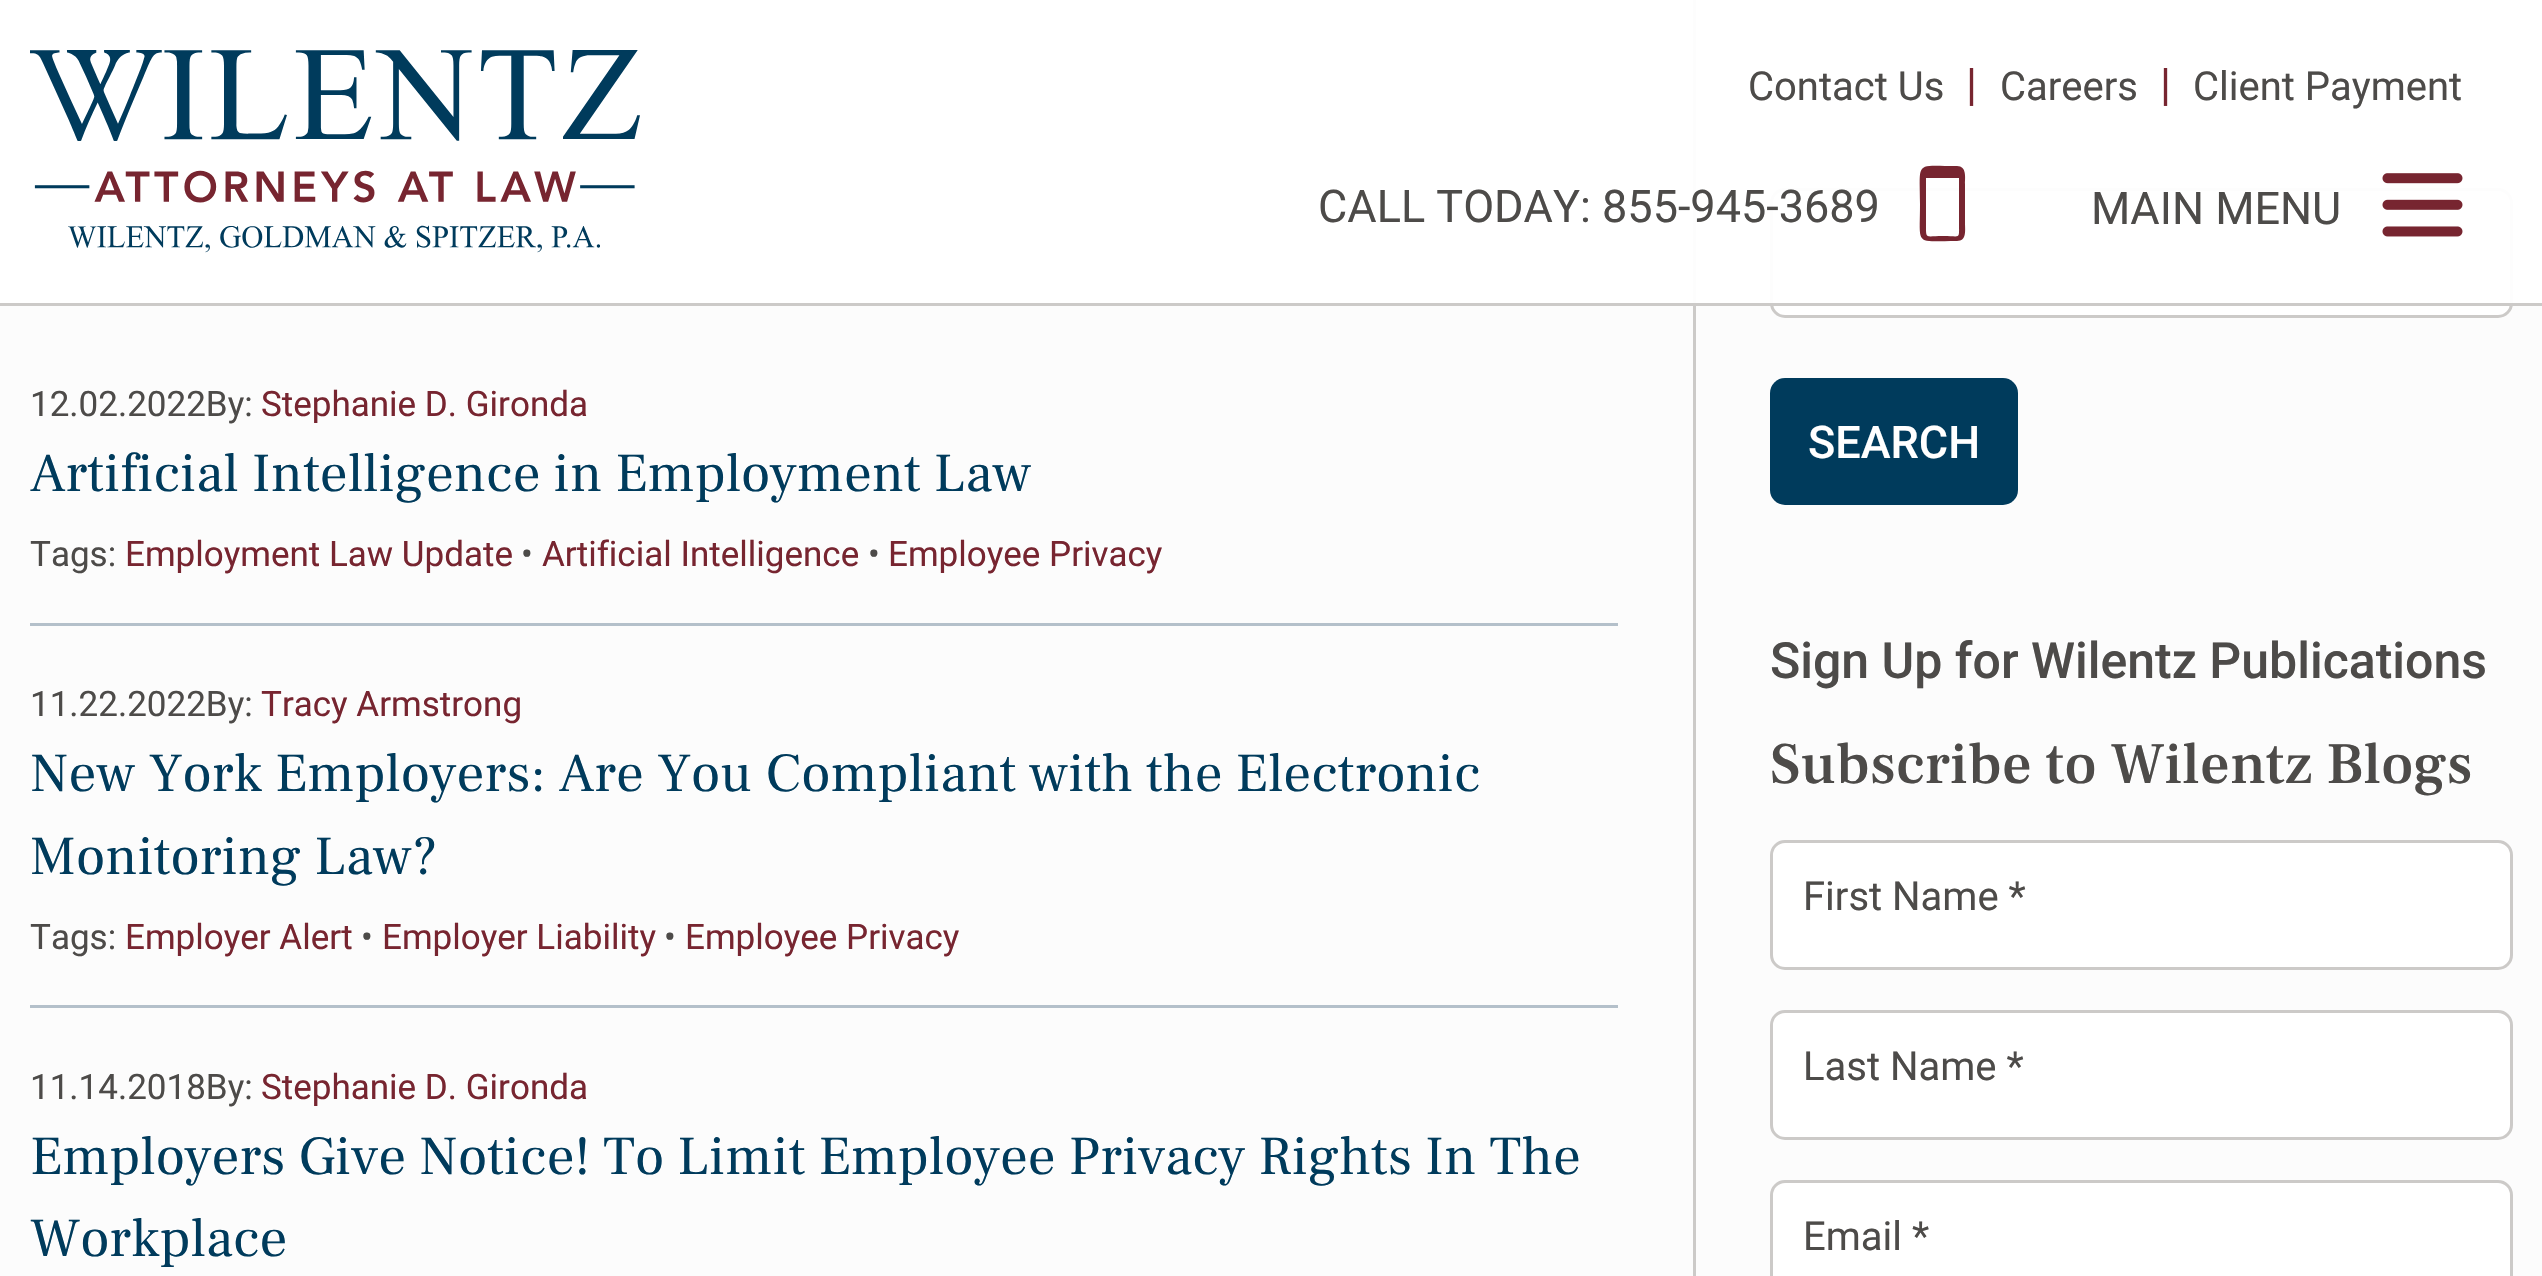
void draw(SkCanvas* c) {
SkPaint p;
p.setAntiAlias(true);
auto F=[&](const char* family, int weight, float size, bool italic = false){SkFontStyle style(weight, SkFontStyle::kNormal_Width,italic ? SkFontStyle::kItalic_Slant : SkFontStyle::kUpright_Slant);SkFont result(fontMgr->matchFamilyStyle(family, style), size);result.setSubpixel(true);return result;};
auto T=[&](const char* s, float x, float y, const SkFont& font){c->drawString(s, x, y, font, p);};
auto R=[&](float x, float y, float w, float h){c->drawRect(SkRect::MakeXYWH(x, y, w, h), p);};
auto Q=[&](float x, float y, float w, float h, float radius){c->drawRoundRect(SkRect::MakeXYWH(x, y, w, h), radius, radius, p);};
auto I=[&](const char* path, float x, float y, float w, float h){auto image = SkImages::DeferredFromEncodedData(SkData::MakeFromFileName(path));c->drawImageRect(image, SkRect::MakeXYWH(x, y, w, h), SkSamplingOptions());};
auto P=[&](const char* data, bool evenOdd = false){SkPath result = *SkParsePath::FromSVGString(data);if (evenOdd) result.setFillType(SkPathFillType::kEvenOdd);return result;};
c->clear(0xfffcfcfc);
p.setColor(0xffcccac8);
R(1693,0,3,1276);
p.setColor(0xffffffff);
c->drawRoundRect(SkRect::MakeXYWH(1771.5,189.5,740,127),13.5,13.5,p);
p.setStroke(true);
p.setStrokeWidth(3);
p.setColor(0xffcccac8);
c->drawRoundRect(SkRect::MakeXYWH(1771.5,189.5,740,127),13.5,13.5,p);
p.setStroke(false);
p.setColor(0xf2ffffff);
R(0,0,2542,303);
p.setColor(0xffcccac8);
R(0,303,2542,3);
I("1.png",30,50,610,203);
auto f1 = F("Roboto",400,40);
p.setColor(0xff4d4b49);
T("Contact Us",1748,100,f1);
auto f2 = F("Roboto",400,45);
p.setColor(0xff772530);
T("|",1966,100,f2);
p.setColor(0xff4d4b49);
T("Careers",2000,100,f1);
p.setColor(0xff772530);
T("|",2160,100,f2);
p.setColor(0xff4d4b49);
T("Client Payment",2193,100,f1);
T("CALL TODAY: 855-945-3689",1318,222,f2);
p.setColor(0xff772530);
c->drawPath(P("M1957 166c10 0 8 12 8 18v39c0 7 2 18-8 18c-43 0-37 6-37-37c0-44-6-38 37-38zm2 12h-33v46c0 16-1 12 17 12c18 0 16 4 16-12z"),p);
p.setColor(0xff4d4b49);
T("MAIN MENU",2091,224,f2);
I("2.png",2382,173,81,64);
p.setColor(0xffb4c0ca);
R(30,623,1588,3);
auto f3 = F("Roboto",400,35);
p.setColor(0xff4d4b49);
T("12.02.2022By:",30,416,f3);
p.setColor(0xff772530);
T("Stephanie D. Gironda",261,416,f3);
auto f4 = F("Frank Ruhl Libre",400,55);
p.setColor(0xff003b5c);
T("Artificial Intelligence in Employment Law",30,491,f4);
p.setColor(0xff4d4b49);
T("Tags:",30,566,f3);
p.setColor(0xff772530);
T("Employment Law Update",125,566,f3);
p.setColor(0xff4d4b49);
T("•",521,566,f3);
p.setColor(0xff772530);
T("Artificial Intelligence",542,566,f3);
p.setColor(0xff4d4b49);
T("•",868,566,f3);
p.setColor(0xff772530);
T("Employee Privacy",888,566,f3);
p.setColor(0xffb4c0ca);
R(30,1005,1588,3);
p.setColor(0xff4d4b49);
T("11.22.2022By:",30,716,f3);
p.setColor(0xff772530);
T("Tracy Armstrong",261,716,f3);
p.setColor(0xff003b5c);
T("New York Employers: Are You Compliant with the Electronic",30,791,f4);
T("Monitoring Law?",30,874,f4);
p.setColor(0xff4d4b49);
T("Tags:",30,949,f3);
p.setColor(0xff772530);
T("Employer Alert",125,949,f3);
p.setColor(0xff4d4b49);
T("•",361,949,f3);
p.setColor(0xff772530);
T("Employer Liability",382,949,f3);
p.setColor(0xff4d4b49);
T("•",664,949,f3);
p.setColor(0xff772530);
T("Employee Privacy",685,949,f3);
p.setColor(0xff4d4b49);
T("11.14.2018By:",30,1099,f3);
p.setColor(0xff772530);
T("Stephanie D. Gironda",261,1099,f3);
p.setColor(0xff003b5c);
T("Employers Give Notice! To Limit Employee Privacy Rights In The",30,1174,f4);
T("Workplace",30,1256,f4);
Q(1770,378,248,127,15);
auto f5 = F("Roboto",500,45);
p.setColor(0xffffffff);
T("SEARCH",1808,458,f5);
auto f6 = F("Roboto",500,50);
p.setColor(0xff4d4b49);
T("Sign Up for Wilentz Publications",1770,678,f6);
auto f7 = F("Frank Ruhl Libre",500,58.6);
T("Subscribe to Wilentz Blogs",1770,783,f7);
p.setColor(0xffffffff);
c->drawRoundRect(SkRect::MakeXYWH(1771.5,841.5,740,127),13.5,13.5,p);
p.setStroke(true);
p.setColor(0xffcccac8);
c->drawRoundRect(SkRect::MakeXYWH(1771.5,841.5,740,127),13.5,13.5,p);
p.setStroke(false);
p.setColor(0xff4d4b49);
T("First Name *",1803,910,f1);
p.setColor(0xffffffff);
c->drawRoundRect(SkRect::MakeXYWH(1771.5,1011.5,740,127),13.5,13.5,p);
p.setStroke(true);
p.setColor(0xffcccac8);
c->drawRoundRect(SkRect::MakeXYWH(1771.5,1011.5,740,127),13.5,13.5,p);
p.setStroke(false);
p.setColor(0xff4d4b49);
T("Last Name *",1803,1080,f1);
p.setColor(0xffffffff);
Q(1773,1183,737,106,13);
p.setStroke(true);
p.setColor(0xffcccac8);
c->drawRoundRect(SkRect::MakeXYWH(1771.5,1181.5,740,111),13.5,13.5,p);
p.setStroke(false);
p.setColor(0xff4d4b49);
T("Email *",1803,1250,f1);
}
